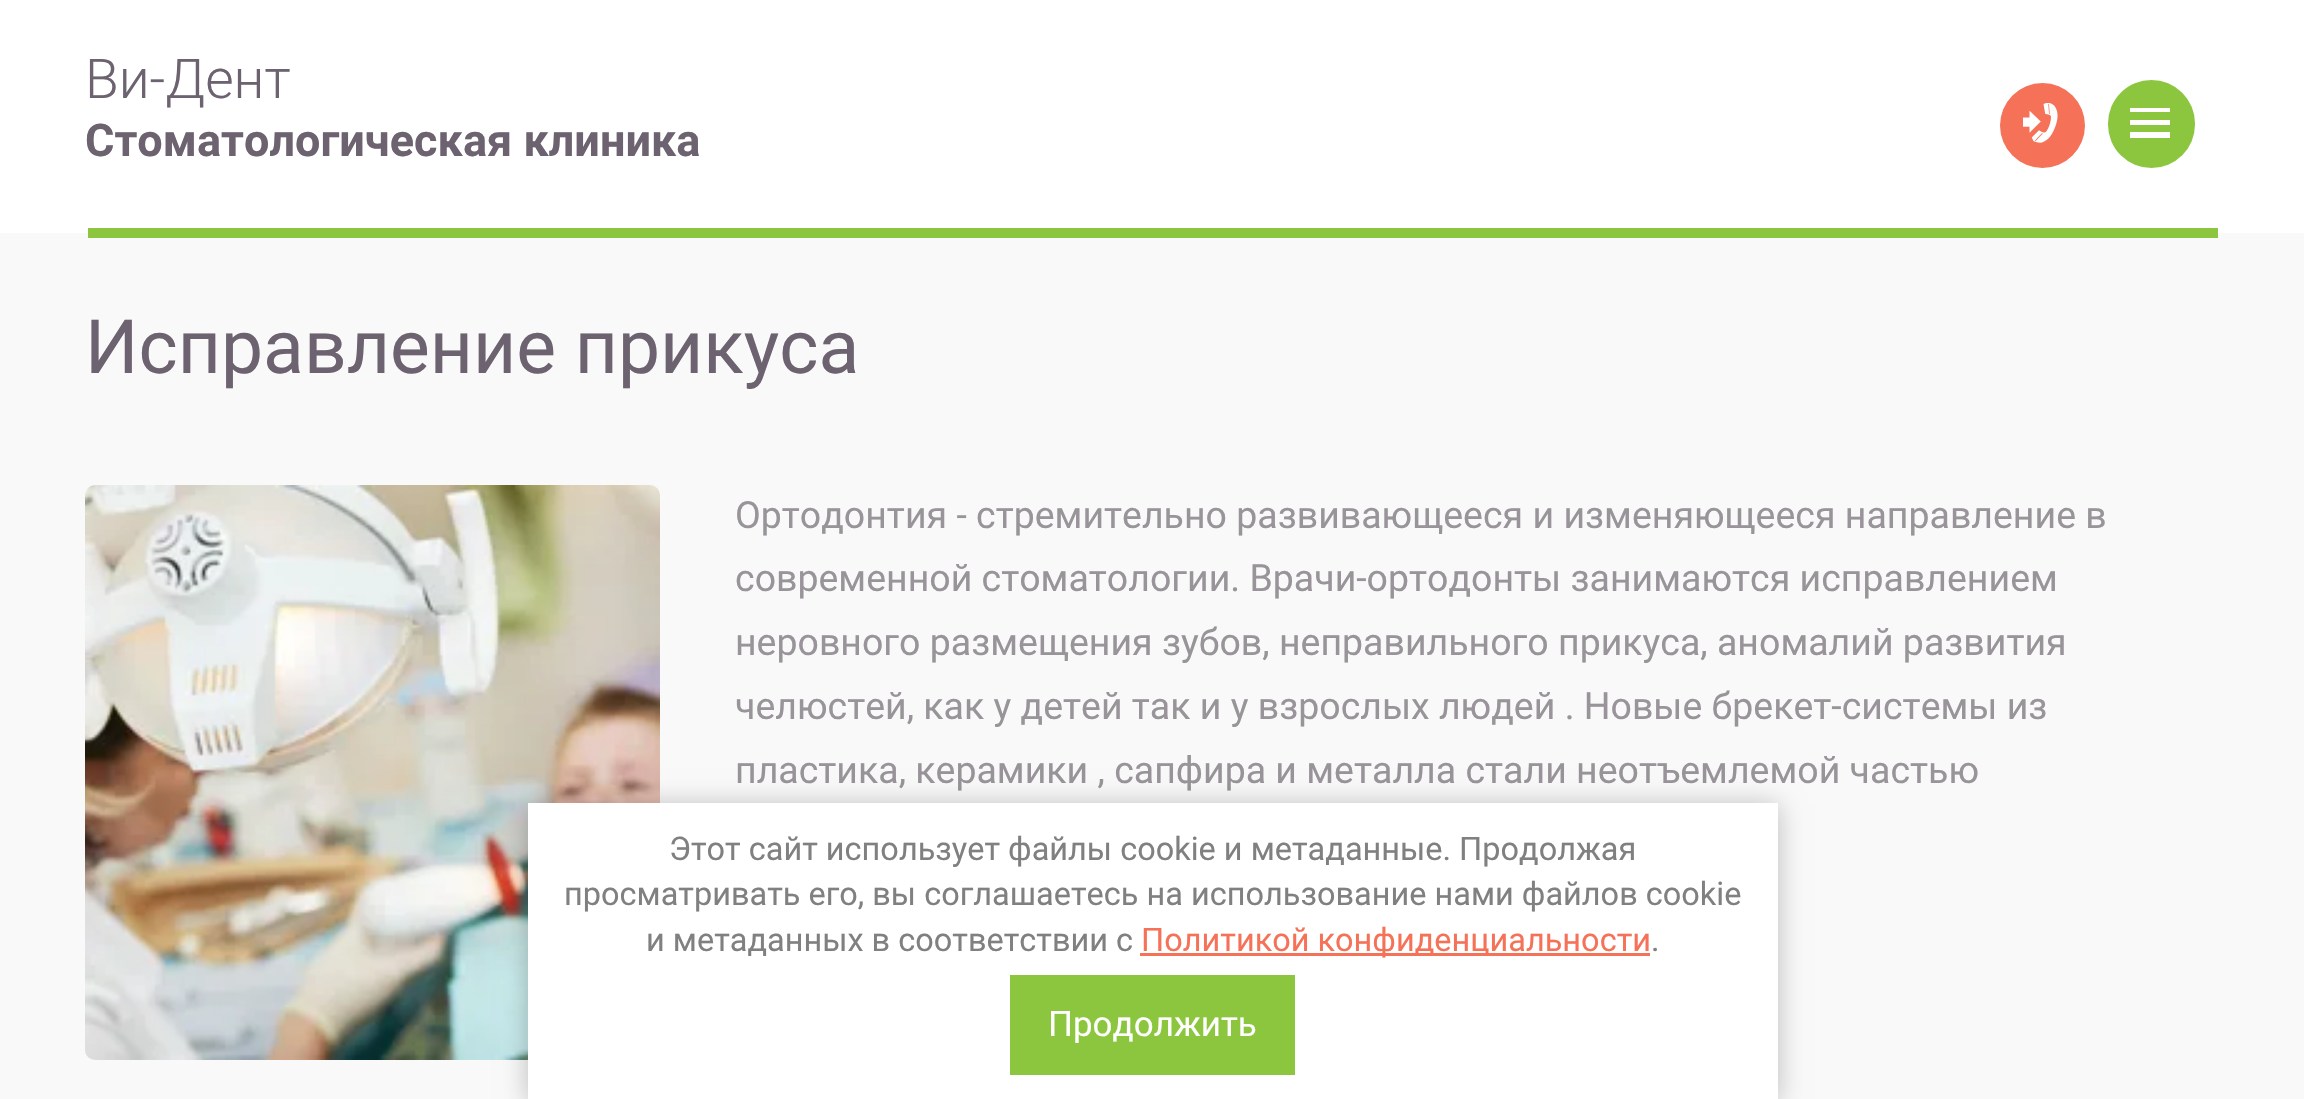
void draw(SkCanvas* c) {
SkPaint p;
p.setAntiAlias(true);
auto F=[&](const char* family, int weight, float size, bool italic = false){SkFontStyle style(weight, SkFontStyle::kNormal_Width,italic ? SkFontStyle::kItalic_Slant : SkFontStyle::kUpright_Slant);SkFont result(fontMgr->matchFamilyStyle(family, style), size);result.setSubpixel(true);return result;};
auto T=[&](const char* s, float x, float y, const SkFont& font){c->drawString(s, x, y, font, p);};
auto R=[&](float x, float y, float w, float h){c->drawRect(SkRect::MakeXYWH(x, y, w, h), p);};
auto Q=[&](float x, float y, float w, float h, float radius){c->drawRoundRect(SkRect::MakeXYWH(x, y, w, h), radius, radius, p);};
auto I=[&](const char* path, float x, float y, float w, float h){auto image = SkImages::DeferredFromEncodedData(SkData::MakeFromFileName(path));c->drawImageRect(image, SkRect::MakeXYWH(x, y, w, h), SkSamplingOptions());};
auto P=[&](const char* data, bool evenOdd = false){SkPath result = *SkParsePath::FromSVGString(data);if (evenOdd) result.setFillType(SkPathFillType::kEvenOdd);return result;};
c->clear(0xfff9f9f9);
p.setColor(0xffffffff);
R(0,0,2304,233);
auto f1 = F("Roboto",300,55);
p.setColor(0xff6d626f);
T("Ви-Дент",85,98,f1);
auto f2 = F("Roboto",700,45);
T("Стоматологическая клиника",85,156,f2);
p.setColor(0xfff57258);
c->drawCircle(2042.5,125.5,42.5,p);
I("1.png",2023,103,35,40);
p.setColor(0xff8cc63f);
Q(2108,80,87,88,43.5);
p.setColor(0xffffffff);
c->drawPath(P("M2130 108v4h40v-4zm0 17h40v-5h-40zm0 13h40v-6h-40z"),p);
p.setColor(0xff8cc63f);
R(88,228,2130,10);
auto f3 = F("Roboto",400,75);
p.setColor(0xff6d626f);
T("Исправление прикуса",85,373,f3);
I("2.png",85,485,575,575);
auto f4 = F("Roboto",400,37.5);
p.setColor(0xff989499);
T("Ортодонтия - стремительно развивающееся и изменяющееся направление в",735,528,f4);
T("современной стоматологии. Врачи-ортодонты занимаются исправлением",735,591,f4);
T("неровного размещения зубов, неправильного прикуса, аномалий развития",735,655,f4);
T("челюстей, как у детей так и у взрослых людей . Новые брекет-системы из",735,719,f4);
T("пластика, керамики , сапфира и металла стали неотъемлемой частью",735,783,f4);
p.setColor(0x40000000);
p.setMaskFilter(SkMaskFilter::MakeBlur(kNormal_SkBlurStyle, 12.5));
c->drawRect(SkRect::MakeXYWH(528,805,1250,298),p);
p.setMaskFilter(nullptr);
p.setColor(0xffffffff);
R(528,803,1250,296);
auto f5 = F("Roboto",400,32.5);
p.setColor(0xff808080);
T("Этот сайт использует файлы cookie и метаданные. Продолжая",669,860,f5);
T("просматривать его, вы соглашаетесь на использование нами файлов cookie",564,905,f5);
T("и метаданных в соответствии с",646,951,f5);
p.setColor(0xfff57258);
R(1140,953,510,3);
T("Политикой конфиденциальности",1141,951,f5);
p.setColor(0xff808080);
T(".",1651,951,f5);
p.setColor(0xff8cc63f);
R(1010,975,285,100);
auto f6 = F("Roboto",400,35);
p.setColor(0xffffffff);
T("Продолжить",1048,1036,f6);
}
